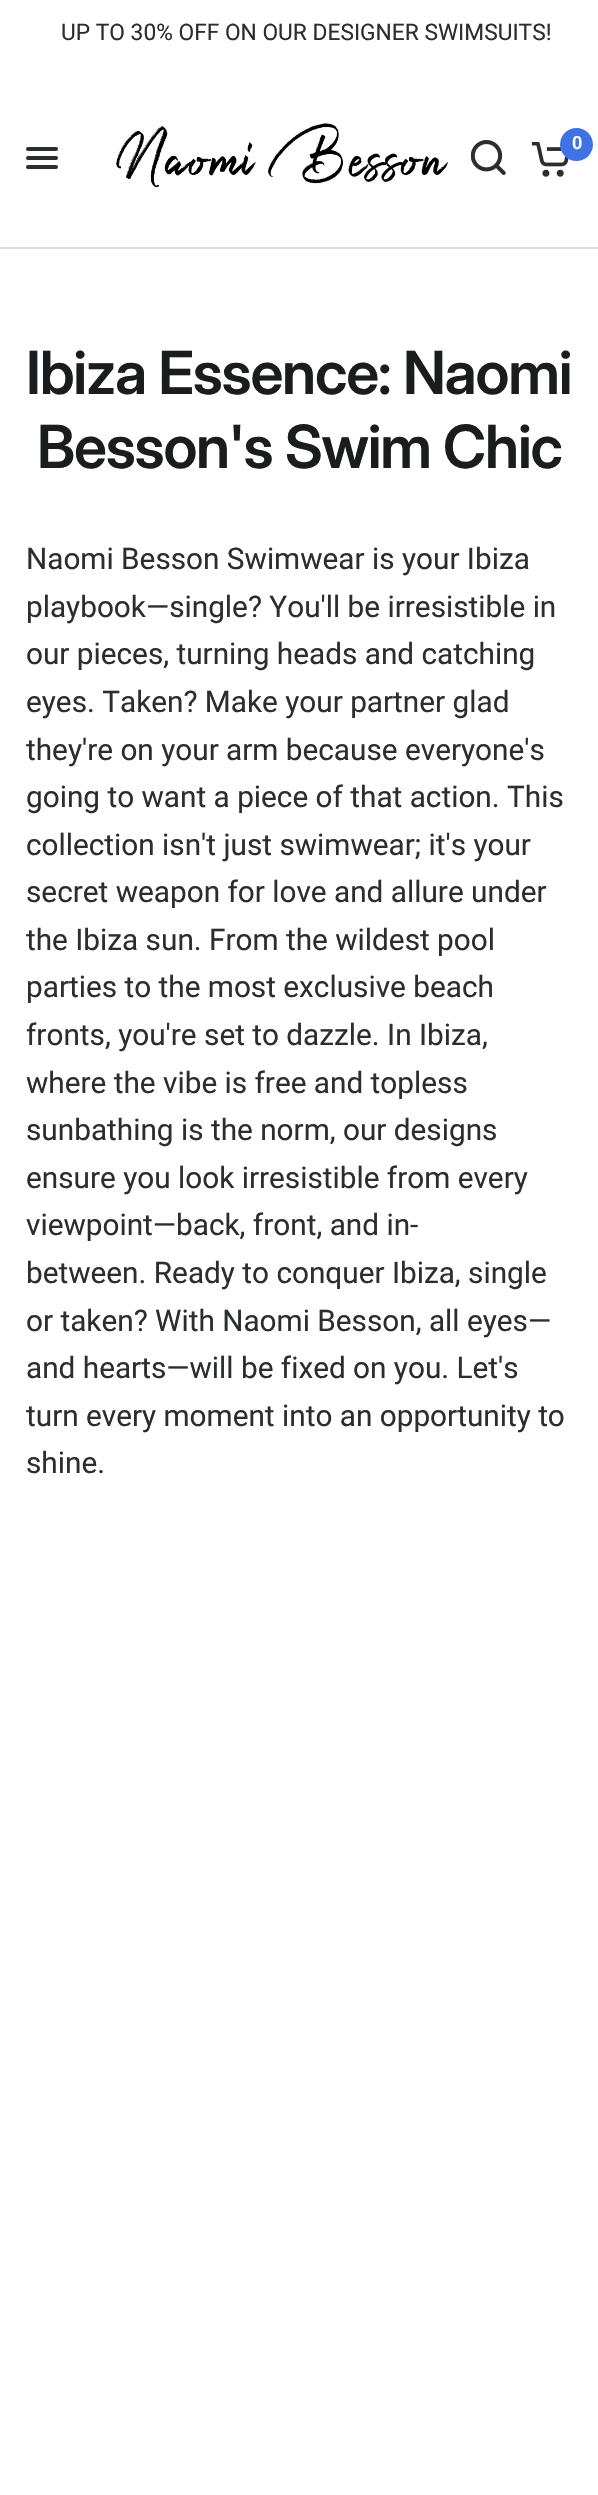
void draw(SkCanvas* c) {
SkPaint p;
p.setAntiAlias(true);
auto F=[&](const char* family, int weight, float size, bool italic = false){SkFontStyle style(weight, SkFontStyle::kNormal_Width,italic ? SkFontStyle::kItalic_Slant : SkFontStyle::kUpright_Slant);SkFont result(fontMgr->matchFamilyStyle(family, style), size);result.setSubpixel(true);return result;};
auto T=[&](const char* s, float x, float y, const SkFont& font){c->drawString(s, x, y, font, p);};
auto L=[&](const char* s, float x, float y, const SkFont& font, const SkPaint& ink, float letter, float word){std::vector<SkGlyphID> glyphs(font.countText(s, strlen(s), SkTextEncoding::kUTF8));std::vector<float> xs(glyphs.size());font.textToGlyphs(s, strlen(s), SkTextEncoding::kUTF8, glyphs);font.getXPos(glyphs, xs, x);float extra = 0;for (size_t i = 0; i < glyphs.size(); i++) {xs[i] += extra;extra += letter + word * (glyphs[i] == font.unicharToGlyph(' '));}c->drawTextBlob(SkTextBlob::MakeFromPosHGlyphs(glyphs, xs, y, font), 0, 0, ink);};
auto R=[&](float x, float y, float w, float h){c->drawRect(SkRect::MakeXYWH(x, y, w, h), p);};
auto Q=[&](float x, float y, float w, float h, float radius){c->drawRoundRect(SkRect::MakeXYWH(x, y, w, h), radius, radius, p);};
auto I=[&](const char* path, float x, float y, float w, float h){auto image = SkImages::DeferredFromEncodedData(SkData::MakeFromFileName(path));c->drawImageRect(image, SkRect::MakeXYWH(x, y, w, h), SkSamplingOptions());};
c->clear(0xffffffff);
auto f1 = F("Roboto",400,22.75);
p.setColor(0xff2c2d2e);
T("UP TO 30% OFF ON OUR DESIGNER SWIMSUITS!",61,40,f1);
I("1.png",116,123,332,64);
I("2.png",471,140,35,35);
I("3.png",531,142,38,35);
p.setColor(0xff3f72e5);
c->drawCircle(576.5,144.5,16.5,p);
auto f2 = F("Roboto",600,18);
p.setColor(0xffffffff);
T("0",572,149,f2);
p.setColor(0xff2c2d2e);
Q(26,147,32,4,2);
Q(26,156,32,4,2);
Q(26,165,32,4,2);
p.setColor(0xffdadce0);
R(0,247,598,2);
auto f3 = F("Inter",600,59.5);
p.setColor(0xff1a1c1d);
L("Ibiza Essence: Naomi",26,394,f3,p,-1.2,0);
L("Besson's Swim Chic",37,468,f3,p,-1.2,0);
auto f4 = F("Roboto",400,29.75);
p.setColor(0xff2c2d2e);
T("Naomi Besson Swimwear is your Ibiza",26,569,f4);
T("playbook—single? You'll be irresistible in",26,617,f4);
T("our pieces, turning heads and catching",26,664,f4);
T("eyes. Taken? Make your partner glad",26,712,f4);
T("they're on your arm because everyone's",26,760,f4);
T("going to want a piece of that action. This",26,807,f4);
T("collection isn't just swimwear; it's your",26,855,f4);
T("secret weapon for love and allure under",26,902,f4);
T("the Ibiza sun. From the wildest pool",26,950,f4);
T("parties to the most exclusive beach",26,997,f4);
T("fronts, you're set to dazzle. In Ibiza,",26,1045,f4);
T("where the vibe is free and topless",26,1093,f4);
T("sunbathing is the norm, our designs",26,1140,f4);
T("ensure you look irresistible from every",26,1188,f4);
T("viewpoint—back, front, and in-",26,1235,f4);
T("between. Ready to conquer Ibiza, single",26,1283,f4);
T("or taken? With Naomi Besson, all eyes—",26,1331,f4);
T("and hearts—will be fixed on you. Let's",26,1378,f4);
T("turn every moment into an opportunity to",26,1426,f4);
T("shine.",26,1473,f4);
}
